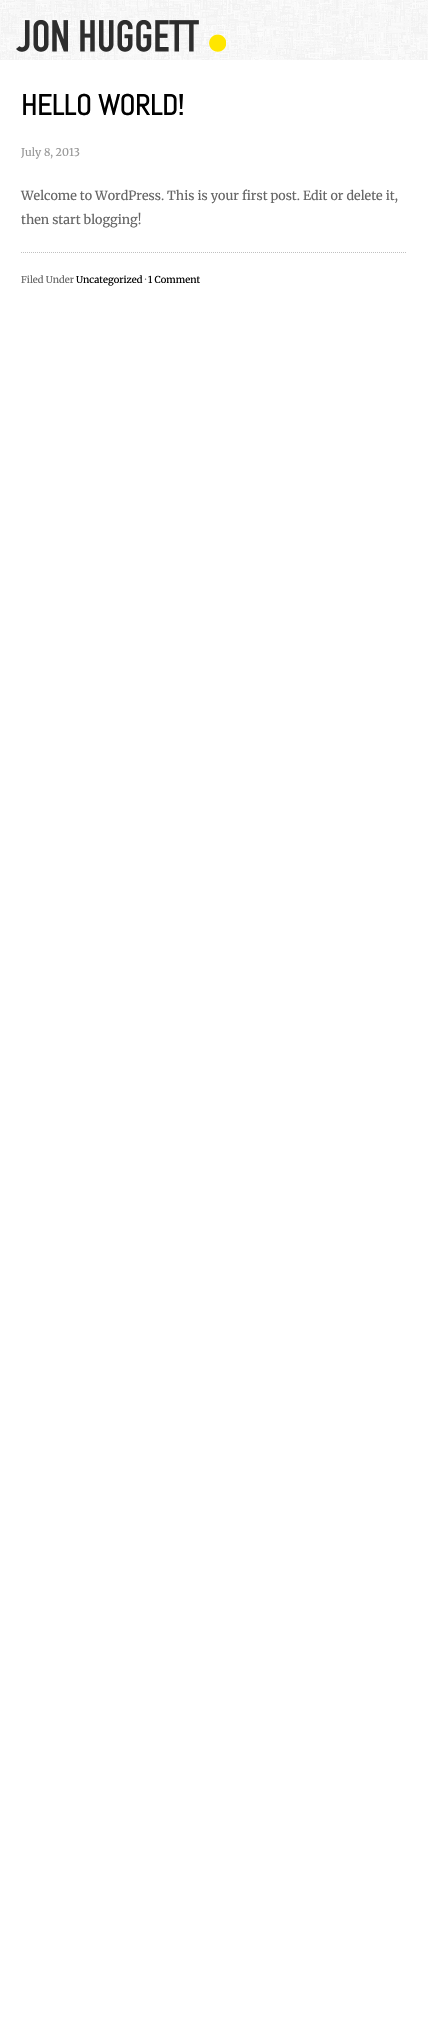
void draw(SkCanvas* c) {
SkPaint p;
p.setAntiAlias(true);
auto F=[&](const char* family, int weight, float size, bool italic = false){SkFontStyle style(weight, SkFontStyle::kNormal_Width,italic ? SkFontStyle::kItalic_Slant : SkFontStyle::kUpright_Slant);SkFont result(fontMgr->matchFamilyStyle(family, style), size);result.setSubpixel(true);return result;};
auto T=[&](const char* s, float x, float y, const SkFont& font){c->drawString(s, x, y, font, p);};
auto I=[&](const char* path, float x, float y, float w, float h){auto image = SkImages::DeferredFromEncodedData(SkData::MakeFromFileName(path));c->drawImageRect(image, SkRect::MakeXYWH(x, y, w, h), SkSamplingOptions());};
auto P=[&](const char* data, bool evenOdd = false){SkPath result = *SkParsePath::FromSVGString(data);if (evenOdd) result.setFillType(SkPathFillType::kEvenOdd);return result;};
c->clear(0xffffffff);
I("1.png",0,0,428,60);
I("2.png",16,20,210,32);
auto f1 = F("Abel",700,28.75);
p.setColor(0xff000000);
T("HELLO WORLD!",21,115,f1);
auto f2 = F("Merriweather",400,10.75);
p.setColor(0xff999999);
T("July 8, 2013",21,156,f2);
auto f3 = F("Merriweather",400,12.6);
p.setColor(0xff666666);
T("Welcome to WordPress. This is your first post. Edit or delete it,",21,200,f3);
T("then start blogging!",21,224,f3);
p.setStroke(true);
p.setStrokeWidth(1);
p.setColor(0xffc0c0c0);
p.setPathEffect(SkDashPathEffect::Make({{1,1}}, 0));
c->drawPath(P("M21 252.5h386"),p);
p.setPathEffect(nullptr);
auto f4 = F("Merriweather",400,9.5);
p.setStroke(false);
p.setColor(0xff666666);
T("Filed Under",21,283,f4);
p.setColor(0xff000000);
T("Uncategorized",76,283,f4);
p.setColor(0xff666666);
T("·",145,283,f4);
p.setColor(0xff000000);
T("1 Comment",148,283,f4);
}
